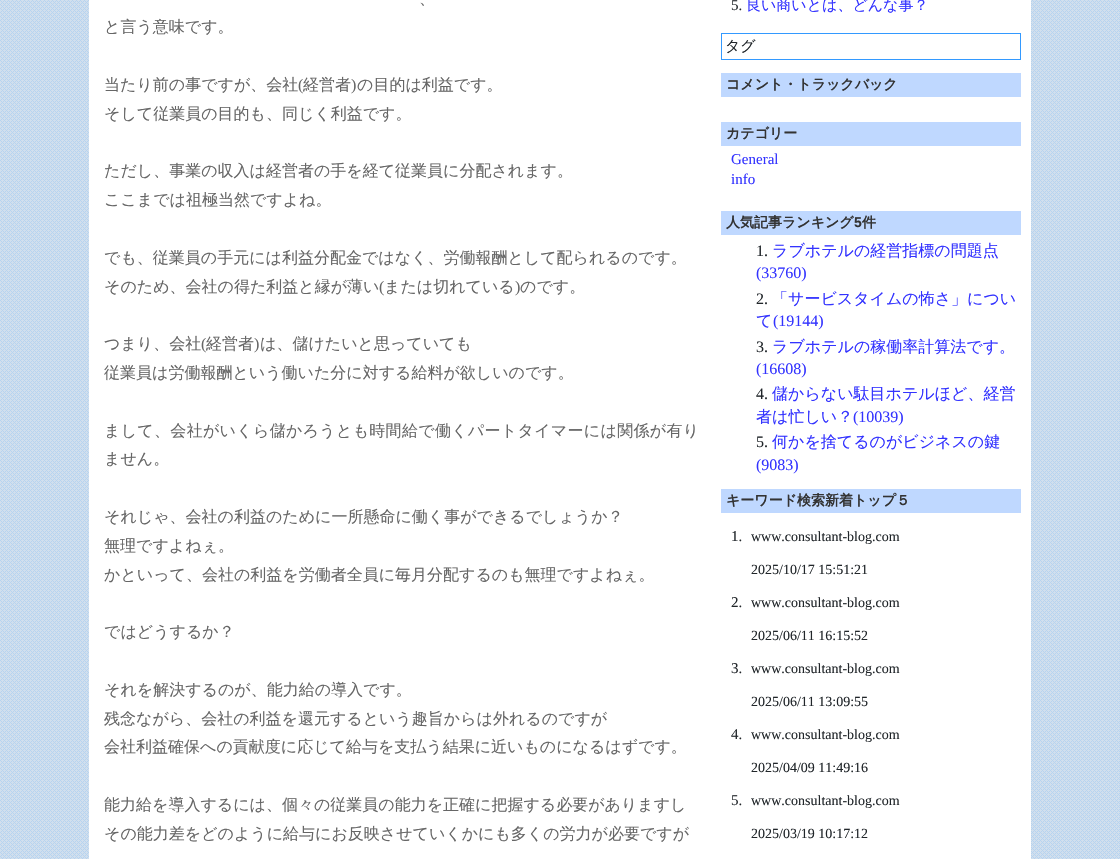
void draw(SkCanvas* c) {
SkPaint p;
p.setAntiAlias(true);
auto F=[&](const char* family, int weight, float size, bool italic = false){SkFontStyle style(weight, SkFontStyle::kNormal_Width,italic ? SkFontStyle::kItalic_Slant : SkFontStyle::kUpright_Slant);SkFont result(fontMgr->matchFamilyStyle(family, style), size);result.setSubpixel(true);return result;};
auto T=[&](const char* s, float x, float y, const SkFont& font){c->drawString(s, x, y, font, p);};
auto L=[&](const char* s, float x, float y, const SkFont& font, const SkPaint& ink, float letter, float word){std::vector<SkGlyphID> glyphs(font.countText(s, strlen(s), SkTextEncoding::kUTF8));std::vector<float> xs(glyphs.size());font.textToGlyphs(s, strlen(s), SkTextEncoding::kUTF8, glyphs);font.getXPos(glyphs, xs, x);float extra = 0;for (size_t i = 0; i < glyphs.size(); i++) {xs[i] += extra;extra += letter + word * (glyphs[i] == font.unicharToGlyph(' '));}c->drawTextBlob(SkTextBlob::MakeFromPosHGlyphs(glyphs, xs, y, font), 0, 0, ink);};
auto R=[&](float x, float y, float w, float h){c->drawRect(SkRect::MakeXYWH(x, y, w, h), p);};
auto I=[&](const char* path, float x, float y, float w, float h){auto image = SkImages::DeferredFromEncodedData(SkData::MakeFromFileName(path));c->drawImageRect(image, SkRect::MakeXYWH(x, y, w, h), SkSamplingOptions());};
c->clear(0xffffffff);
I("1.png",0,0,1120,859);
p.setColor(0xffffffff);
R(89,0,942,859);
auto f1 = F("WenQuanYi Zen Hei",500,16);
p.setColor(0xff666666);
T("、",419,4,f1);
T("と言う意味です。",104,32,f1);
T("当たり前の事ですが、会社",104,90,f1);
auto f2 = F("Liberation Serif",400,16);
T("(",298,90,f2);
T("経営者",303,90,f1);
T(")",351,90,f2);
T("の目的は利益です。",357,90,f1);
T("そして従業員の目的も、同じく利益です。",104,119,f1);
T("ただし、事業の収入は経営者の手を経て従業員に分配されます。",104,176,f1);
T("ここまでは祖極当然ですよね。",104,205,f1);
T("でも、従業員の手元には利益分配金ではなく、労働報酬として配られるのです。",104,263,f1);
T("そのため、会社の得た利益と縁が薄い",104,292,f1);
T("(",379,292,f2);
T("または切れている",384,292,f1);
T(")",515,292,f2);
T("のです。",520,292,f1);
T("つまり、会社",104,349,f1);
T("(",201,349,f2);
T("経営者",206,349,f1);
T(")",254,349,f2);
T("は、儲けたいと思っていても",260,349,f1);
T("従業員は労働報酬という働いた分に対する給料が欲しいのです。",104,378,f1);
L("まして、会社がいくら儲かろうとも時間給で働くパートタイマーには関係が有り",104,436,f1,p,.3,0);
T("ません。",104,464,f1);
T("それじゃ、会社の利益のために一所懸命に働く事ができるでしょうか？",104,522,f1);
T("無理ですよねぇ。",104,551,f1);
T("かといって、会社の利益を労働者全員に毎月分配するのも無理ですよねぇ。",104,580,f1);
T("ではどうするか？",104,637,f1);
T("それを解決するのが、能力給の導入です。",104,695,f1);
T("残念ながら、会社の利益を還元するという趣旨からは外れるのですが",104,724,f1);
T("会社利益確保への貢献度に応じて給与を支払う結果に近いものになるはずです。",104,752,f1);
T("能力給を導入するには、個々の従業員の能力を正確に把握する必要がありますし",104,810,f1);
T("その能力差をどのように給与にお反映させていくかにも多くの労力が必要ですが",104,839,f1);
auto f3 = F("Liberation Serif",400,15);
p.setColor(0xff21262a);
T("5.",731,10,f3);
auto f4 = F("WenQuanYi Zen Hei",500,15);
p.setColor(0xff3333ff);
T("良い商いとは、どんな事？",746,10,f4);
p.setStroke(true);
p.setStrokeWidth(1);
p.setColor(0xff3399ff);
c->drawRect(SkRect::MakeXYWH(721.5,33.5,299,26),p);
p.setStroke(false);
p.setColor(0xff21262a);
T("タグ",725,51,f4);
p.setColor(0xffbfd8ff);
R(721,73,300,24);
auto f5 = F("WenQuanYi Zen Hei",700,14);
p.setColor(0xff333333);
T("コメント・トラックバック",726,89,f5);
p.setColor(0xffbfd8ff);
R(721,122,300,24);
p.setColor(0xff333333);
T("カテゴリー",726,138,f5);
p.setColor(0xff3333ff);
T("General",731,164,f3);
T("info",731,184,f3);
p.setColor(0xffbfd8ff);
R(721,211,300,24);
p.setColor(0xff333333);
T("人気記事ランキング",726,227,f5);
auto f6 = F("Liberation Sans",700,14);
T("5",854,227,f6);
T("件",862,227,f5);
p.setColor(0xff21262a);
T("1.",756,256,f2);
p.setColor(0xff3333ff);
T("ラブホテルの経営指標の問題点",772,256,f1);
T("(33760)",756,278,f2);
p.setColor(0xff21262a);
T("2.",756,304,f2);
p.setColor(0xff3333ff);
T("「サービスタイムの怖さ」につい",772,304,f1);
T("て",756,326,f1);
T("(19144)",773,326,f2);
p.setColor(0xff21262a);
T("3.",756,352,f2);
p.setColor(0xff3333ff);
T("ラブホテルの稼働率計算法です。",772,352,f1);
T("(16608)",756,374,f2);
p.setColor(0xff21262a);
T("4.",756,399,f2);
p.setColor(0xff3333ff);
T("儲からない駄目ホテルほど、経営",772,399,f1);
T("者は忙しい？",756,422,f1);
T("(10039)",853,422,f2);
p.setColor(0xff21262a);
T("5.",756,447,f2);
p.setColor(0xff3333ff);
T("何かを捨てるのがビジネスの鍵",772,447,f1);
T("(9083)",756,470,f2);
p.setColor(0xffbfd8ff);
R(721,489,300,24);
p.setColor(0xff333333);
T("キーワード検索新着トップ５",726,505,f5);
p.setColor(0xff21262a);
T("1.",731,541,f3);
auto f7 = F("Liberation Serif",400,14);
T("www.consultant-blog.com",751,541,f7);
T("2025/10/17 15:51:21",751,574,f7);
T("2.",731,607,f3);
T("www.consultant-blog.com",751,607,f7);
T("2025/06/11 16:15:52",751,640,f7);
T("3.",731,673,f3);
T("www.consultant-blog.com",751,673,f7);
T("2025/06/11 13:09:55",751,706,f7);
T("4.",731,739,f3);
T("www.consultant-blog.com",751,739,f7);
T("2025/04/09 11:49:16",751,772,f7);
T("5.",731,805,f3);
T("www.consultant-blog.com",751,805,f7);
T("2025/03/19 10:17:12",751,838,f7);
}
